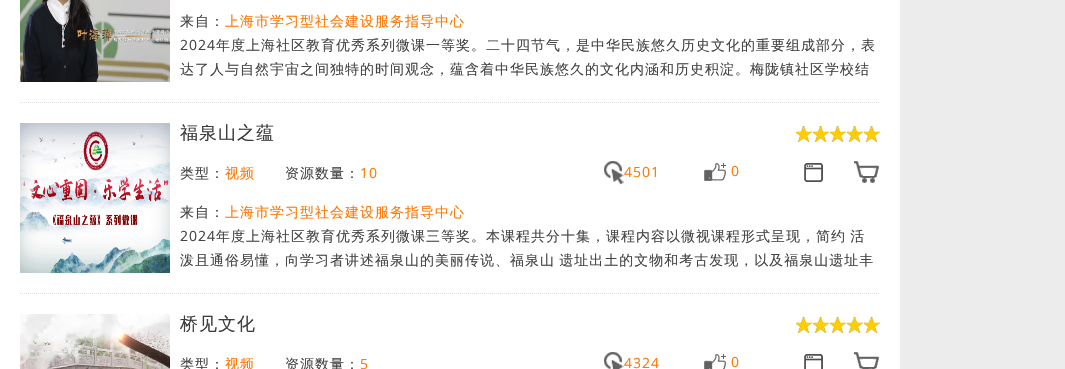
void draw(SkCanvas* c) {
SkPaint p;
p.setAntiAlias(true);
auto F=[&](const char* family, int weight, float size, bool italic = false){SkFontStyle style(weight, SkFontStyle::kNormal_Width,italic ? SkFontStyle::kItalic_Slant : SkFontStyle::kUpright_Slant);SkFont result(fontMgr->matchFamilyStyle(family, style), size);result.setSubpixel(true);return result;};
auto L=[&](const char* s, float x, float y, const SkFont& font, const SkPaint& ink, float letter, float word){std::vector<SkGlyphID> glyphs(font.countText(s, strlen(s), SkTextEncoding::kUTF8));std::vector<float> xs(glyphs.size());font.textToGlyphs(s, strlen(s), SkTextEncoding::kUTF8, glyphs);font.getXPos(glyphs, xs, x);float extra = 0;for (size_t i = 0; i < glyphs.size(); i++) {xs[i] += extra;extra += letter + word * (glyphs[i] == font.unicharToGlyph(' '));}c->drawTextBlob(SkTextBlob::MakeFromPosHGlyphs(glyphs, xs, y, font), 0, 0, ink);};
auto R=[&](float x, float y, float w, float h){c->drawRect(SkRect::MakeXYWH(x, y, w, h), p);};
auto I=[&](const char* path, float x, float y, float w, float h){auto image = SkImages::DeferredFromEncodedData(SkData::MakeFromFileName(path));c->drawImageRect(image, SkRect::MakeXYWH(x, y, w, h), SkSamplingOptions());};
auto P=[&](const char* data, bool evenOdd = false){SkPath result = *SkParsePath::FromSVGString(data);if (evenOdd) result.setFillType(SkPathFillType::kEvenOdd);return result;};
c->clear(0xffececec);
p.setColor(0xffffffff);
R(0,0,900,369);
I("1.png",20,0,150,82);
auto f1 = F("WenQuanYi Zen Hei",500,14);
p.setColor(0xff444444);
L("来自：",180,26,f1,p,1,0);
p.setColor(0xffff7800);
L("上海市学习型社会建设服务指导中心",225,26,f1,p,1,0);
auto f2 = F("Open Sans",400,14);
p.setColor(0xff444444);
L("2024",180,50,f2,p,1,0);
L("年度上海社区教育优秀系列微课一等奖。二十四节气，是中华民族悠久历史文化的重要组成部分，表",216,50,f1,p,1,0);
L("达了人与自然宇宙之间独特的时间观念，蕴含着中华民族悠久的文化内涵和历史积淀。梅陇镇社区学校结",180,74,f1,p,1,0);
p.setStroke(true);
p.setStrokeWidth(1);
p.setColor(0xffdddddd);
p.setPathEffect(SkDashPathEffect::Make({{1,1}}, 0));
c->drawPath(P("M20 102.5h860"),p);
p.setPathEffect(nullptr);
I("2.png",20,123,150,150);
c->save();
c->clipRect(SkRect::MakeXYWH(180,123,700,18));
auto f3 = F("WenQuanYi Zen Hei",500,18);
p.setStroke(false);
p.setColor(0xff3d3d3d);
L("福泉山之蕴",180,139,f3,p,1,0);
c->restore();
I("3.png",796,126,84,16);
p.setColor(0xff444444);
L("类型：",180,178,f1,p,1,0);
p.setColor(0xffff7800);
L("视频",225,178,f1,p,1,0);
p.setColor(0xff444444);
L("资源数量：",285,178,f1,p,1,0);
p.setColor(0xffff7800);
L("10",360,178,f2,p,1,0);
I("4.png",604,161,20,24);
L("4501",624,177,f2,p,1,0);
I("5.png",704,163,22,18);
L("0",731,176,f2,p,1,0);
I("6.png",804,163,19,19);
I("7.png",854,161,25,22);
p.setColor(0xff444444);
L("来自：",180,217,f1,p,1,0);
p.setColor(0xffff7800);
L("上海市学习型社会建设服务指导中心",225,217,f1,p,1,0);
p.setColor(0xff444444);
L("2024",180,241,f2,p,1,0);
L("年度上海社区教育优秀系列微课三等奖。本课程共分十集，课程内容以微视课程形式呈现，简约 活",216,241,f1,p,1,-1);
L("泼且通俗易懂，向学习者讲述福泉山的美丽传说、福泉山 遗址出土的文物和考古发现，以及福泉山遗址丰",180,265,f1,p,1,-1);
p.setStroke(true);
p.setColor(0xffdddddd);
p.setPathEffect(SkDashPathEffect::Make({{1,1}}, 0));
c->drawPath(P("M20 293.5h860"),p);
p.setPathEffect(nullptr);
I("8.png",20,314,150,55);
c->save();
c->clipRect(SkRect::MakeXYWH(180,314,700,18));
p.setStroke(false);
p.setColor(0xff3d3d3d);
L("桥见文化",180,330,f3,p,1,0);
c->restore();
I("3.png",796,317,84,16);
p.setColor(0xff444444);
L("类型：",180,369,f1,p,1,0);
p.setColor(0xffff7800);
L("视频",225,369,f1,p,1,0);
p.setColor(0xff444444);
L("资源数量：",285,369,f1,p,1,0);
p.setColor(0xffff7800);
L("5",360,369,f2,p,1,0);
I("9.png",604,352,20,17);
L("4324",624,368,f2,p,1,0);
I("10.png",704,354,22,15);
L("0",731,367,f2,p,1,0);
I("11.png",804,354,19,15);
I("12.png",854,352,25,17);
}
